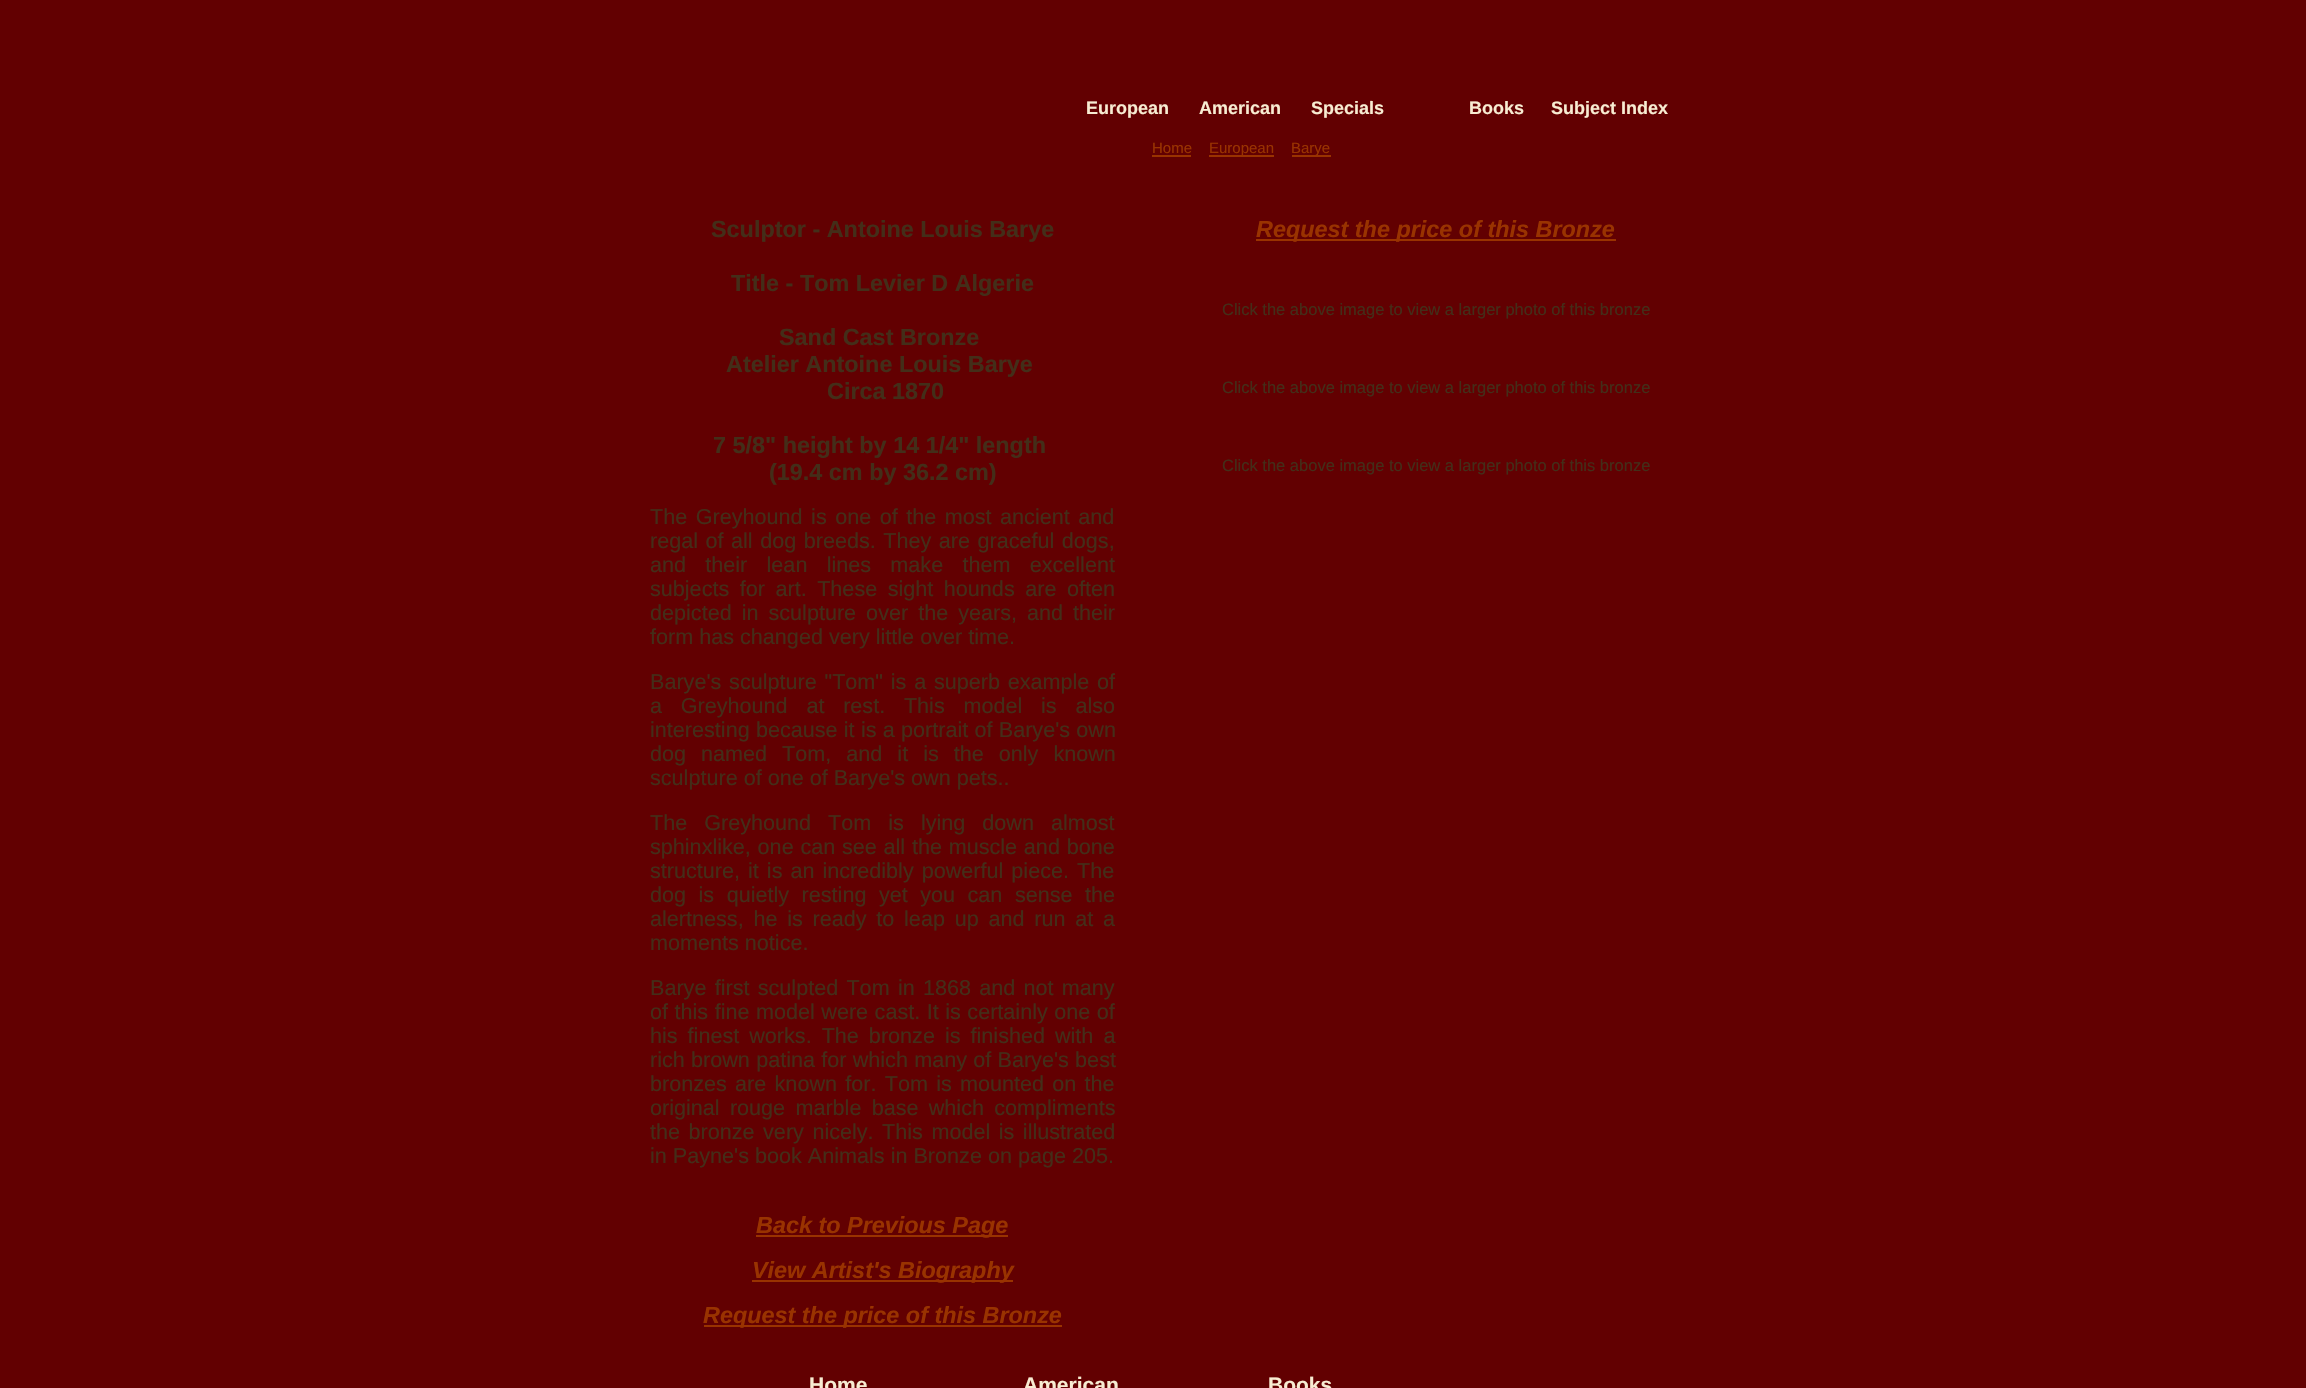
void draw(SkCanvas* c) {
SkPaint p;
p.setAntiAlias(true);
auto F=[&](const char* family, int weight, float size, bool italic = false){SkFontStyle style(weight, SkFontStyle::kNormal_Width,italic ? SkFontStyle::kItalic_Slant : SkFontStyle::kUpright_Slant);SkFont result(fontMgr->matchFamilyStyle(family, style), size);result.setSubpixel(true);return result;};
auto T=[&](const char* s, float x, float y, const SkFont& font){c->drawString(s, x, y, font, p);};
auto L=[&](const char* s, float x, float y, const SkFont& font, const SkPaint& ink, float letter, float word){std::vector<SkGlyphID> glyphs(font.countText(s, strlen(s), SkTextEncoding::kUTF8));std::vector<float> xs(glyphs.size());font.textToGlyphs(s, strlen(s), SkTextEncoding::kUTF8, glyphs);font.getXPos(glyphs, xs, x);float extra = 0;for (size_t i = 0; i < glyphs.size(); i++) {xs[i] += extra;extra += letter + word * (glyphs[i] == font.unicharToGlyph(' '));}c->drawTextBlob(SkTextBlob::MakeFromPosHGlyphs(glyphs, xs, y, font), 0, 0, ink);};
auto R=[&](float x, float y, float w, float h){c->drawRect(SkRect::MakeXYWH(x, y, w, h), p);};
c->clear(0xff620001);
auto f1 = F("Liberation Sans",700,18);
p.setColor(0xfff8ecd2);
T("European",1086,114,f1);
T("American",1199,114,f1);
T("Specials",1311,114,f1);
T("Books",1469,114,f1);
T("Subject Index",1551,114,f1);
auto f2 = F("Liberation Sans",400,15);
p.setColor(0xff993300);
T("Home",1152,153,f2);
R(1152,155,39,2);
R(1209,155,65,2);
T("European",1209,153,f2);
R(1292,155,39,2);
T("Barye",1291,153,f2);
auto f3 = F("Liberation Sans",700,23.4);
p.setColor(0xff432e19);
T("Sculptor - Antoine Louis Barye",711,237,f3);
T("Title - Tom Levier D Algerie",731,291,f3);
T("Sand Cast Bronze",779,345,f3);
T("Atelier Antoine Louis Barye",726,372,f3);
T("Circa 1870",827,399,f3);
T("7 5/8\" height by 14 1/4\" length",713,453,f3);
T("(19.4 cm by 36.2 cm)",769,480,f3);
auto f4 = F("Liberation Sans",400,21.6);
L("The Greyhound is one of the most ancient and",650,524,f4,p,0,2.5);
L("regal of all dog breeds. They are graceful dogs,",650,548,f4,p,0,1.5);
L("and their lean lines make them excellent",650,572,f4,p,0,13.25);
L("subjects for art. These sight hounds are often",650,596,f4,p,0,4.5);
L("depicted in sculpture over the years, and their",650,620,f4,p,0,4);
T("form has changed very little over time.",650,644,f4);
L("Barye's sculpture \"Tom\" is a superb example of",650,689,f4,p,0,1.75);
L("a Greyhound at rest. This model is also",650,713,f4,p,0,12.75);
L("interesting because it is a portrait of Barye's own",650,737,f4,p,0,.25);
L("dog named Tom, and it is the only known",650,761,f4,p,0,9);
T("sculpture of one of Barye's own pets..",650,785,f4);
L("The Greyhound Tom is lying down almost",650,830,f4,p,0,11);
L("sphinxlike, one can see all the muscle and bone",650,854,f4,p,0,.75);
L("structure, it is an incredibly powerful piece. The",650,878,f4,p,0,2);
L("dog is quietly resting yet you can sense the",650,902,f4,p,0,6.5);
L("alertness, he is ready to leap up and run at a",650,926,f4,p,0,3.75);
T("moments notice.",650,950,f4);
L("Barye first sculpted Tom in 1868 and not many",650,995,f4,p,0,2.25);
L("of this fine model were cast. It is certainly one of",650,1019,f4,p,0,.5);
L("his finest works. The bronze is finished with a",650,1043,f4,p,0,4);
L("rich brown patina for which many of Barye's best",650,1067,f4,p,0,.25);
L("bronzes are known for. Tom is mounted on the",650,1091,f4,p,0,2.25);
L("original rouge marble base which compliments",650,1115,f4,p,0,4.25);
L("the bronze very nicely. This model is illustrated",650,1139,f4,p,0,2.5);
T("in Payne's book Animals in Bronze on page 205.",650,1163,f4);
p.setColor(0xff993300);
R(756,1235,252,2);
auto f5 = F("Liberation Sans",700,23.4,true);
T("Back to Previous Page",756,1233,f5);
R(752,1280,261,2);
T("View Artist's Biography",752,1278,f5);
R(704,1325,358,2);
T("Request the price of this Bronze",703,1323,f5);
R(1256,239,360,2);
T("Request the price of this Bronze",1256,237,f5);
auto f6 = F("Liberation Sans",400,16.5);
p.setColor(0xff432e19);
T("Click the above image to view a larger photo of this bronze",1222,315,f6);
T("Click the above image to view a larger photo of this bronze",1222,393,f6);
T("Click the above image to view a larger photo of this bronze",1222,471,f6);
auto f7 = F("Liberation Sans",700,21);
p.setColor(0xfff8ecd2);
T("Home",809,1392,f7);
T("American",1023,1392,f7);
T("Books",1268,1392,f7);
}
